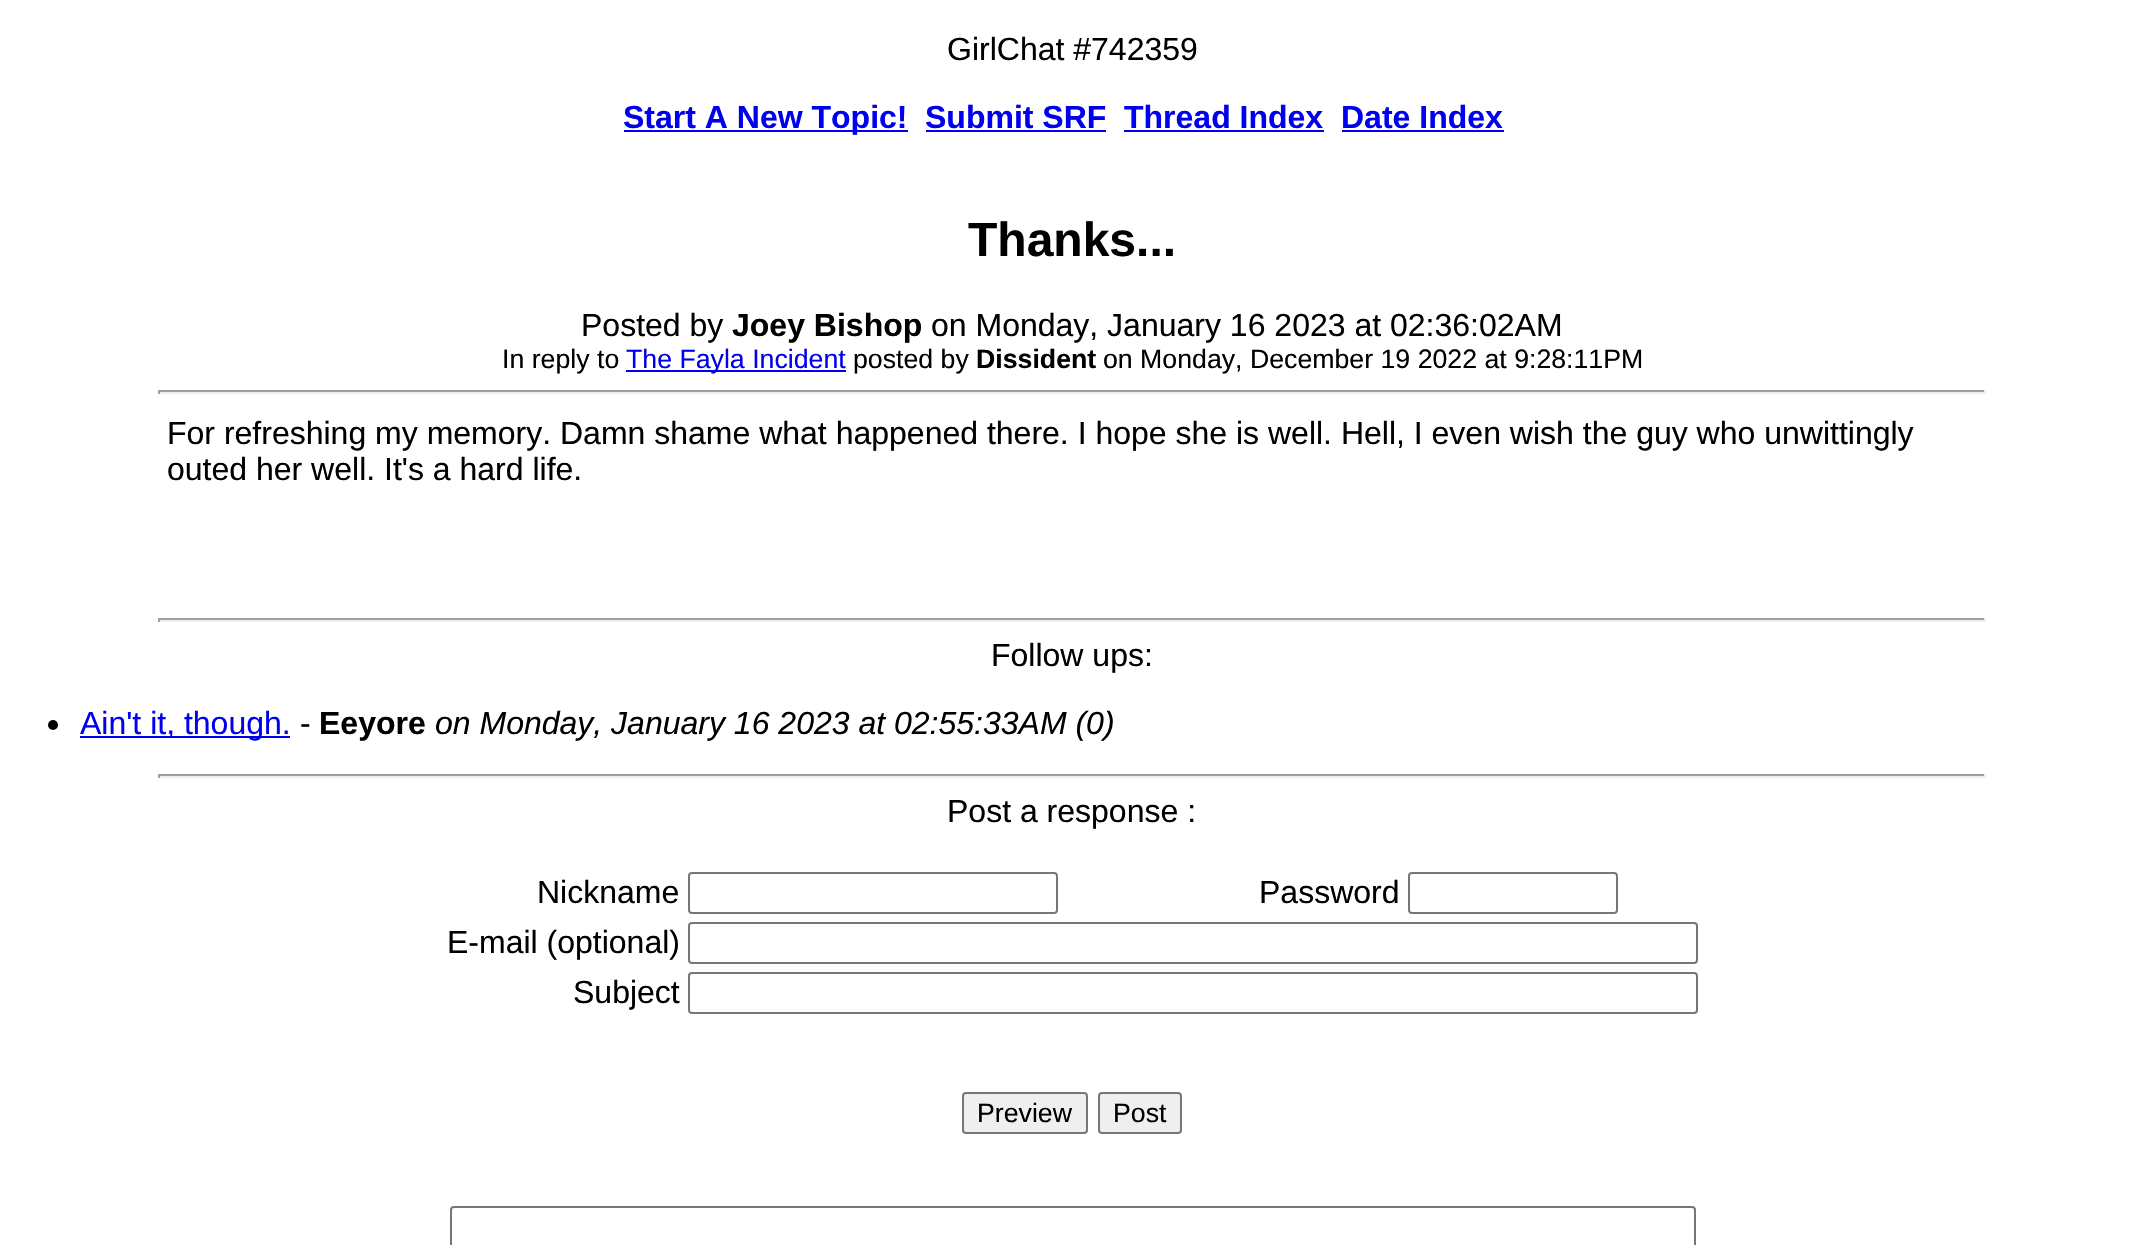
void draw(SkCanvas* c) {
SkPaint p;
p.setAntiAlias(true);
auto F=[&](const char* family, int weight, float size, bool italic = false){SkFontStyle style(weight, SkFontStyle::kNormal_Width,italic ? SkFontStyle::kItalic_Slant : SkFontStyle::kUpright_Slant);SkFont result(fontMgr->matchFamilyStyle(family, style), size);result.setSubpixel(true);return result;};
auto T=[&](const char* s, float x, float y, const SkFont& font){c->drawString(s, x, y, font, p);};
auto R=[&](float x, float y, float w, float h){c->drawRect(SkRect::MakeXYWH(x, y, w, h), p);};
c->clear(0xffffffff);
auto f1 = F("Liberation Sans",400,32);
p.setColor(0xff000000);
T("GirlChat #742359",947,60,f1);
p.setColor(0xff0000ee);
R(624,130,284,2);
auto f2 = F("Liberation Sans",700,32);
T("Start A New Topic!",623,128,f2);
T("Submit SRF",925,128,f2);
R(926,130,180,2);
T("Thread Index",1124,128,f2);
R(1124,130,200,2);
T("Date Index",1341,128,f2);
R(1342,130,162,2);
auto f3 = F("Liberation Sans",700,48);
p.setColor(0xff000000);
T("Thanks...",968,256,f3);
T("Posted by",581,336,f1);
T("Joey Bishop",732,336,f2);
T("on Monday, January 16 2023 at 02:36:02AM",931,336,f1);
auto f4 = F("Liberation Sans",400,26.7);
T("In reply to",502,368,f4);
p.setColor(0xff0000ee);
R(626,370,220,2);
T("The Fayla Incident",626,368,f4);
p.setColor(0xff000000);
T("posted by",853,368,f4);
auto f5 = F("Liberation Sans",700,26.7);
T("Dissident",976,368,f5);
T("on Monday, December 19 2022 at 9:28:11PM",1103,368,f4);
p.setColor(0xff9f9f9f);
R(158,390,1828,2);
p.setColor(0xffeeeeee);
R(1984,390,2,4);
R(158,392,1828,2);
p.setColor(0xff9f9f9f);
R(158,390,2,4);
p.setColor(0xff000000);
T("For refreshing my memory. Damn shame what happened there. I hope she is well. Hell, I even wish the guy who unwittingly",167,444,f1);
T("outed her well. It's a hard life.",167,480,f1);
p.setColor(0xff9f9f9f);
R(158,618,1828,2);
p.setColor(0xffeeeeee);
R(1984,618,2,4);
R(158,620,1828,2);
p.setColor(0xff9f9f9f);
R(158,618,2,4);
p.setColor(0xff000000);
T("Follow ups:",991,666,f1);
c->drawCircle(53,725,5,p);
p.setColor(0xff0000ee);
R(80,736,210,2);
T("Ain't it, though.",80,734,f1);
p.setColor(0xff000000);
T("-",300,734,f1);
T("Eeyore",319,734,f2);
auto f6 = F("Liberation Sans",400,32,true);
T("on Monday, January 16 2023 at 02:55:33AM (0)",435,734,f6);
p.setColor(0xff9f9f9f);
R(158,774,1828,2);
p.setColor(0xffeeeeee);
R(1984,774,2,4);
R(158,776,1828,2);
p.setColor(0xff9f9f9f);
R(158,774,2,4);
p.setColor(0xff000000);
T("Post a response :",947,822,f1);
T("Nickname",537,903,f1);
p.setStroke(true);
p.setStrokeWidth(2);
p.setColor(0xff767676);
c->drawRoundRect(SkRect::MakeXYWH(689,873,368,40),3,3,p);
p.setStroke(false);
p.setColor(0xff000000);
T("Password",1259,903,f1);
p.setStroke(true);
p.setColor(0xff767676);
c->drawRoundRect(SkRect::MakeXYWH(1409,873,208,40),3,3,p);
p.setStroke(false);
p.setColor(0xff000000);
T("E-mail (optional)",447,953,f1);
p.setStroke(true);
p.setColor(0xff767676);
c->drawRoundRect(SkRect::MakeXYWH(689,923,1008,40),3,3,p);
p.setStroke(false);
p.setColor(0xff000000);
T("Subject",573,1003,f1);
p.setStroke(true);
p.setColor(0xff767676);
c->drawRoundRect(SkRect::MakeXYWH(689,973,1008,40),3,3,p);
p.setStroke(false);
p.setColor(0xffefefef);
c->drawRoundRect(SkRect::MakeXYWH(963,1093,124,40),3,3,p);
p.setStroke(true);
p.setColor(0xff767676);
c->drawRoundRect(SkRect::MakeXYWH(963,1093,124,40),3,3,p);
p.setStroke(false);
p.setColor(0xff000000);
T("Preview",977,1122,f4);
p.setColor(0xffefefef);
c->drawRoundRect(SkRect::MakeXYWH(1099,1093,82,40),3,3,p);
p.setStroke(true);
p.setColor(0xff767676);
c->drawRoundRect(SkRect::MakeXYWH(1099,1093,82,40),3,3,p);
p.setStroke(false);
p.setColor(0xff000000);
T("Post",1113,1122,f4);
p.setStroke(true);
p.setColor(0xff767676);
c->drawRoundRect(SkRect::MakeXYWH(451,1207,1244,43),3,3,p);
}
